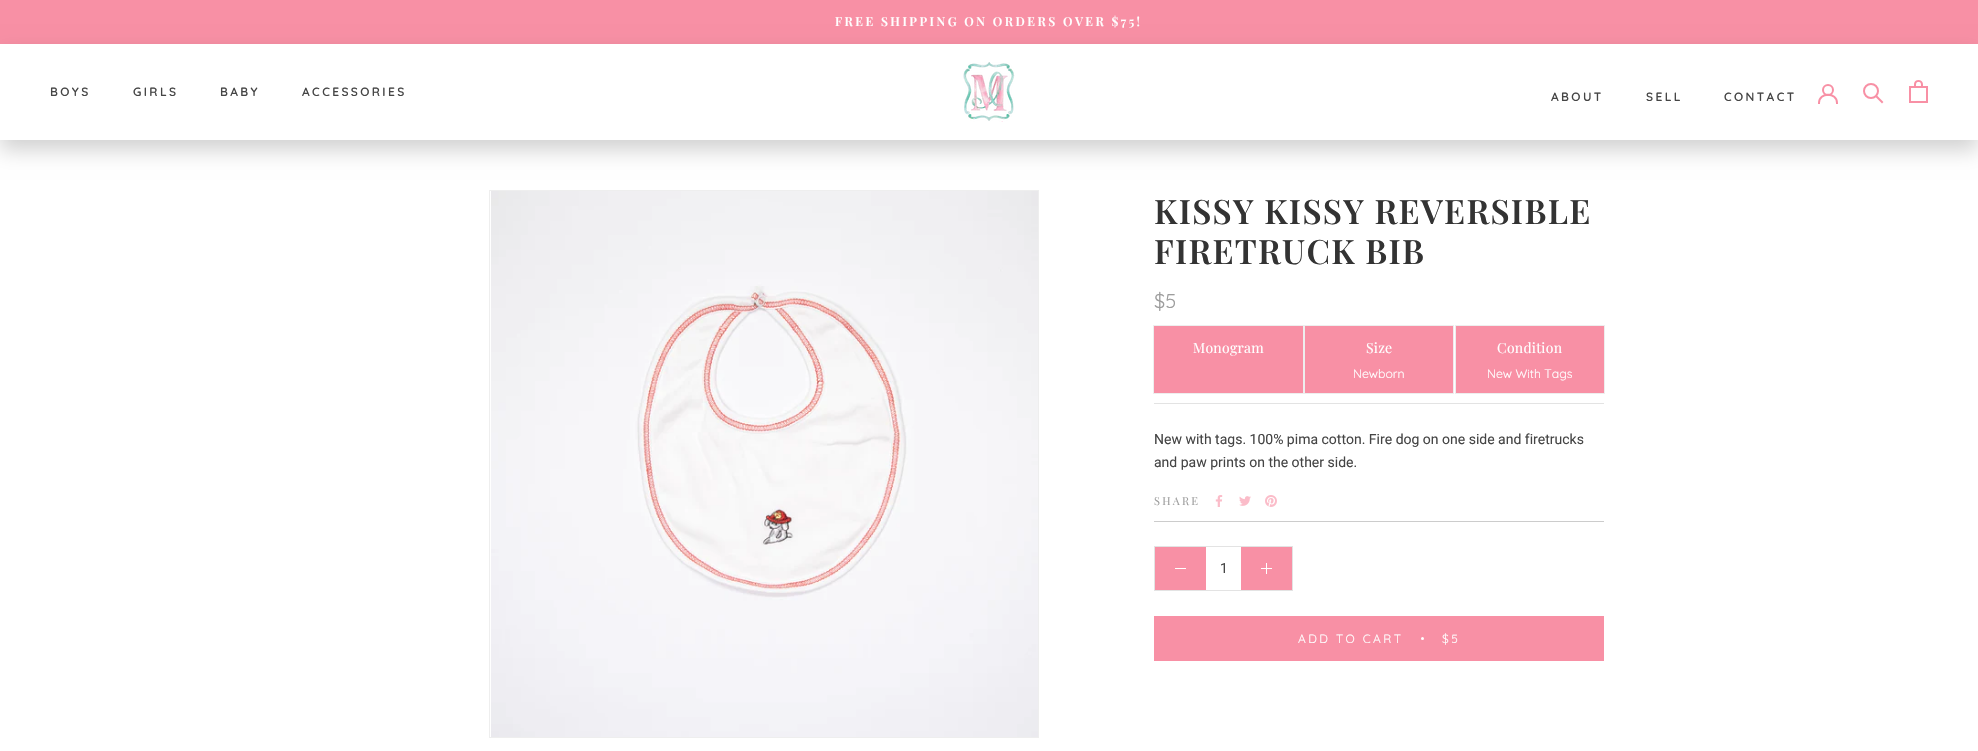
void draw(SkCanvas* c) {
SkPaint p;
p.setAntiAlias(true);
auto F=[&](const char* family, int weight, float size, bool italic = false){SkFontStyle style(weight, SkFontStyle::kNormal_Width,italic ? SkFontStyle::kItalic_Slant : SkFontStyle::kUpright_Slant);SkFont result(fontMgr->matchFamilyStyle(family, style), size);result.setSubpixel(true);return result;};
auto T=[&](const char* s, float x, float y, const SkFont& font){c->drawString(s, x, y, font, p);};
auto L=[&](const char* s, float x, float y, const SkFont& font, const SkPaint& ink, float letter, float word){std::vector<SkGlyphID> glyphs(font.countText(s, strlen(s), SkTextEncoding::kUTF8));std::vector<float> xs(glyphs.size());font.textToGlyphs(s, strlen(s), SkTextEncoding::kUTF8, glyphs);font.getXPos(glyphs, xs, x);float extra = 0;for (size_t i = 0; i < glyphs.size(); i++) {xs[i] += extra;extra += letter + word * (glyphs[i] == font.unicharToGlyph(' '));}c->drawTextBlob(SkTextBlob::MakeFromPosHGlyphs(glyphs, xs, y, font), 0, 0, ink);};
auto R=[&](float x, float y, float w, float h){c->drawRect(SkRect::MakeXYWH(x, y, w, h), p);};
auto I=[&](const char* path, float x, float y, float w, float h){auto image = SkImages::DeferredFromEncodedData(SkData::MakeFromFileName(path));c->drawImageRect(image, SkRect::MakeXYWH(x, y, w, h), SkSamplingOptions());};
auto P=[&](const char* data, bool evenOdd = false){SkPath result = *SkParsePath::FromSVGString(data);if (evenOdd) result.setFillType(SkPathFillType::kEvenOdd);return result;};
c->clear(0xffffffff);
p.setColor(0xfff890a5);
R(0,0,1978,44);
auto f1 = F("Playfair Display",600,12.25);
p.setColor(0xffffffff);
L("FREE SHIPPING ON ORDERS OVER $75!",835,26,f1,p,2.45,0);
c->save();
c->clipPath(P("M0 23h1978v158h-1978zm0 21h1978v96h-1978z",true),true);
p.setColor(0x2e000000);
p.setMaskFilter(SkMaskFilter::MakeBlur(kNormal_SkBlurStyle, 10));
c->drawRect(SkRect::MakeXYWH(0,54,1978,96),p);
p.setMaskFilter(nullptr);
c->restore();
auto f2 = F("Quicksand",600,12);
p.setColor(0xff454545);
L("BOYS",50,96,f2,p,2.4,0);
L("GIRLS",133,96,f2,p,2.4,0);
L("BABY",220,96,f2,p,2.4,0);
L("ACCESSORIES",302,96,f2,p,2.4,0);
I("1.png",963,62,52,60);
L("ABOUT",1551,101,f2,p,2.4,0);
L("SELL",1646,101,f2,p,2.4,0);
L("CONTACT",1724,101,f2,p,2.4,0);
p.setStroke(true);
p.setStrokeWidth(2);
p.setStrokeCap(SkPaint::kSquare_Cap);
p.setColor(0xfff890a5);
c->drawPath(P("M1819 103c0-11 18-11 18 0"),p);
p.setStrokeCap(SkPaint::kButt_Cap);
c->drawCircle(1828,90,5,p);
p.setStrokeCap(SkPaint::kSquare_Cap);
c->drawPath(P("M1882 102l-5.5-5.5"),p);
p.setStrokeCap(SkPaint::kButt_Cap);
c->drawCircle(1871,91,7,p);
I("2.png",1909,80,19,23);
p.setStrokeWidth(1);
p.setColor(0xffeeeeee);
c->drawRect(SkRect::MakeXYWH(489.5,190.5,549,547),p);
I("3.png",491,191,547,546);
auto f3 = F("Playfair Display",600,33.6);
p.setStroke(false);
p.setColor(0xff333333);
L("KISSY KISSY REVERSIBLE",1154,224,f3,p,1.3,0);
L("FIRETRUCK BIB",1154,264,f3,p,1.3,0);
auto f4 = F("Quicksand",400,20);
p.setColor(0xff9d9d9d);
T("$5",1154,308,f4);
p.setColor(0xfff890a5);
R(1154,326,149,67);
p.setStroke(true);
p.setColor(0xffeeeeee);
c->drawRect(SkRect::MakeXYWH(1153.5,325.5,150,68),p);
auto f5 = F("Playfair Display",400,14);
p.setStroke(false);
p.setColor(0xffffffff);
L("Monogram",1193,353,f5,p,.25,0);
p.setColor(0xfff890a5);
R(1305,326,148,67);
p.setStroke(true);
p.setColor(0xffeeeeee);
c->drawRect(SkRect::MakeXYWH(1304.5,325.5,149,68),p);
p.setStroke(false);
p.setColor(0xffffffff);
L("Size",1366,353,f5,p,.25,0);
auto f6 = F("Quicksand",400,12.25);
T("Newborn",1353,378,f6);
p.setColor(0xfff890a5);
R(1456,326,148,67);
p.setStroke(true);
p.setColor(0xffeeeeee);
c->drawRect(SkRect::MakeXYWH(1455.5,325.5,149,68),p);
p.setStroke(false);
p.setColor(0xffffffff);
L("Condition",1497,353,f5,p,.25,0);
T("New With Tags",1487,378,f6);
p.setColor(0xffe3e3e3);
R(1154,403,450,1);
p.setColor(0xffcccccc);
R(1154,521,450,1);
auto f7 = F("Roboto",400,14);
p.setColor(0xff454545);
T("New with tags. 100% pima cotton. Fire dog on one side and firetrucks",1154,444,f7);
T("and paw prints on the other side.",1154,467,f7);
auto f8 = F("Playfair Display",400,11);
p.setColor(0xff9d9d9d);
L("SHARE",1154,505,f8,p,2.25,0);
I("4.png",1215,495,8,12);
I("5.png",1239,496,12,10);
I("6.png",1265,495,12,12);
p.setStroke(true);
p.setColor(0xffe3e3e3);
c->drawRect(SkRect::MakeXYWH(1154.5,546.5,138,44),p);
p.setStroke(false);
p.setColor(0xfff890a5);
R(1155,547,51,43);
p.setColor(0xffffffff);
R(1175,568,11,1);
p.setColor(0xff454545);
T("1",1220,573,f7);
p.setColor(0xfff890a5);
R(1241,547,51,43);
p.setColor(0xffffffff);
R(1266,563,1,11);
R(1261,568,11,1);
p.setStroke(true);
p.setColor(0xfff890a5);
c->drawRect(SkRect::MakeXYWH(1154.5,616.5,449,44),p);
p.setStroke(false);
R(1155,617,448,43);
auto f9 = F("Quicksand",400,12);
p.setColor(0xffffffff);
L("ADD TO CART",1298,643,f9,p,2.4,0);
c->drawCircle(1422.5,638.5,1.5,p);
L("$5",1442,643,f9,p,2.4,0);
}
